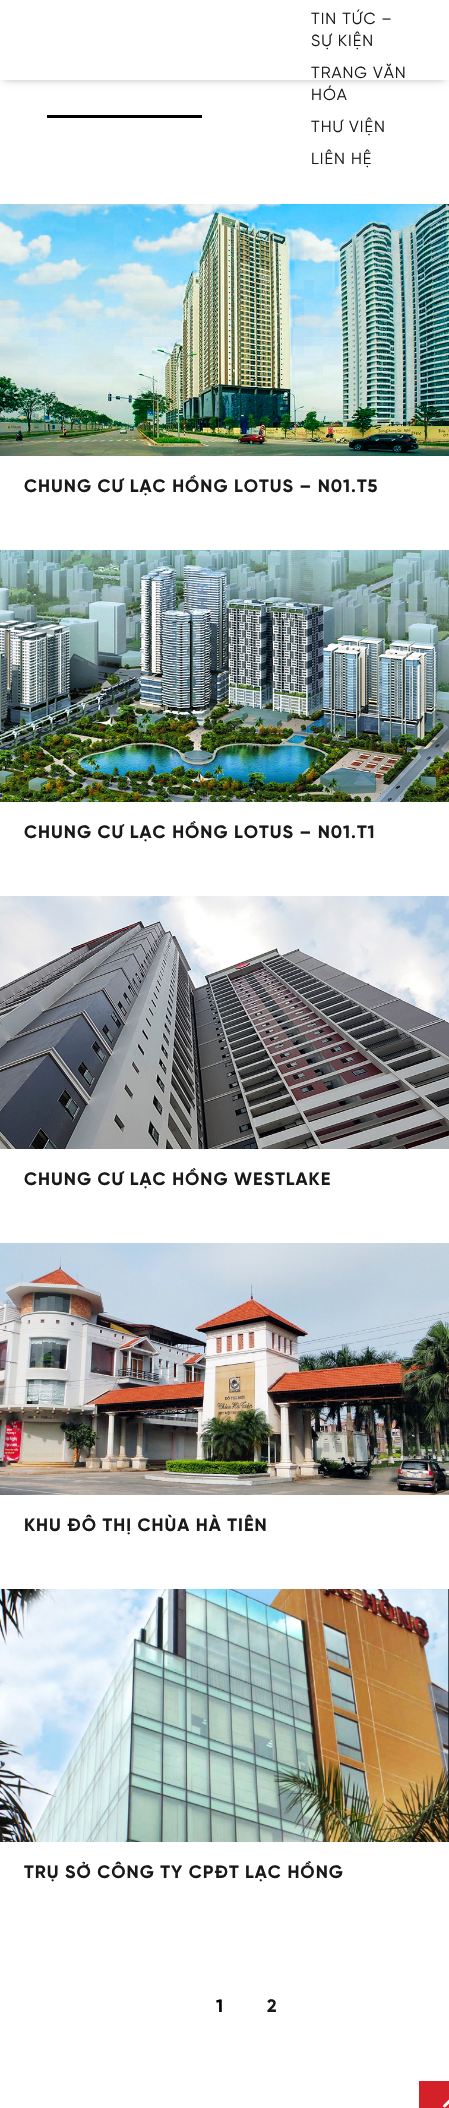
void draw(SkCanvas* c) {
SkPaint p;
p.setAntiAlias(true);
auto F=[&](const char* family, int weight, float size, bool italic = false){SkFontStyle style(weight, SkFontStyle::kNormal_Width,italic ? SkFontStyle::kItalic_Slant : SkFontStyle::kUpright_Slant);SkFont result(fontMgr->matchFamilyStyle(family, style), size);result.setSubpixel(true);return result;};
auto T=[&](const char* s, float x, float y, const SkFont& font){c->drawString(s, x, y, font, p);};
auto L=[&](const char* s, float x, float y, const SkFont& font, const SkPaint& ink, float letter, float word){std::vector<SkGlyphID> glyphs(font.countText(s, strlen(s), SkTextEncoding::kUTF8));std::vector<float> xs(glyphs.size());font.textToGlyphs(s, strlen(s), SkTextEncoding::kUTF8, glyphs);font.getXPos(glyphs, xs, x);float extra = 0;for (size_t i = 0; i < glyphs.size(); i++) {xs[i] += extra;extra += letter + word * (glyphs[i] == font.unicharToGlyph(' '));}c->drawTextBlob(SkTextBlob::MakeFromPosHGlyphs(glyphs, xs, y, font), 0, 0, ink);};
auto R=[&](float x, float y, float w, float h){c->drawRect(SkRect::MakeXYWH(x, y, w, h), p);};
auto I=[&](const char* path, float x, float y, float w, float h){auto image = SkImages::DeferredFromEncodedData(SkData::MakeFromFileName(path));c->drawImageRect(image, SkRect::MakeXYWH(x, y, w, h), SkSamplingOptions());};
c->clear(0xffffffff);
p.setColor(0xff999999);
p.setMaskFilter(SkMaskFilter::MakeBlur(kNormal_SkBlurStyle, 4.5));
c->drawRect(SkRect::MakeXYWH(4,6,441,72),p);
p.setMaskFilter(nullptr);
p.setColor(0xffffffff);
R(0,0,449,80);
auto f1 = F("Gilroy",400,16);
p.setColor(0xff191919);
L("TIN TỨC –",311,24,f1,p,1,0);
L("SỰ KIỆN",311,46,f1,p,1,0);
L("TRANG VĂN",311,78,f1,p,1,0);
L("HÓA",311,100,f1,p,1,0);
L("THƯ VIỆN",311,132,f1,p,1,0);
L("LIÊN HỆ",311,164,f1,p,1,0);
p.setColor(0xff000000);
R(47,115,155,3);
I("1.png",0,204,449,252);
auto f2 = F("Gilroy",700,18);
p.setColor(0xff191919);
L("CHUNG CƯ LẠC HỒNG LOTUS – N01.T5",24,492,f2,p,1,0);
I("2.png",0,550,449,252);
L("CHUNG CƯ LẠC HỒNG LOTUS – N01.T1",24,838,f2,p,1,0);
I("3.png",0,896,449,253);
L("CHUNG CƯ LẠC HỒNG WESTLAKE",24,1185,f2,p,1,0);
I("4.png",0,1243,449,252);
L("KHU ĐÔ THỊ CHÙA HÀ TIÊN",24,1531,f2,p,1,0);
I("5.png",0,1589,449,253);
L("TRỤ SỞ CÔNG TY CPĐT LẠC HỒNG",24,1878,f2,p,1,0);
p.setColor(0xff000000);
T("1",216,2012,f2);
p.setColor(0xff191919);
T("2",267,2012,f2);
I("6.png",419,2081,30,27);
}
